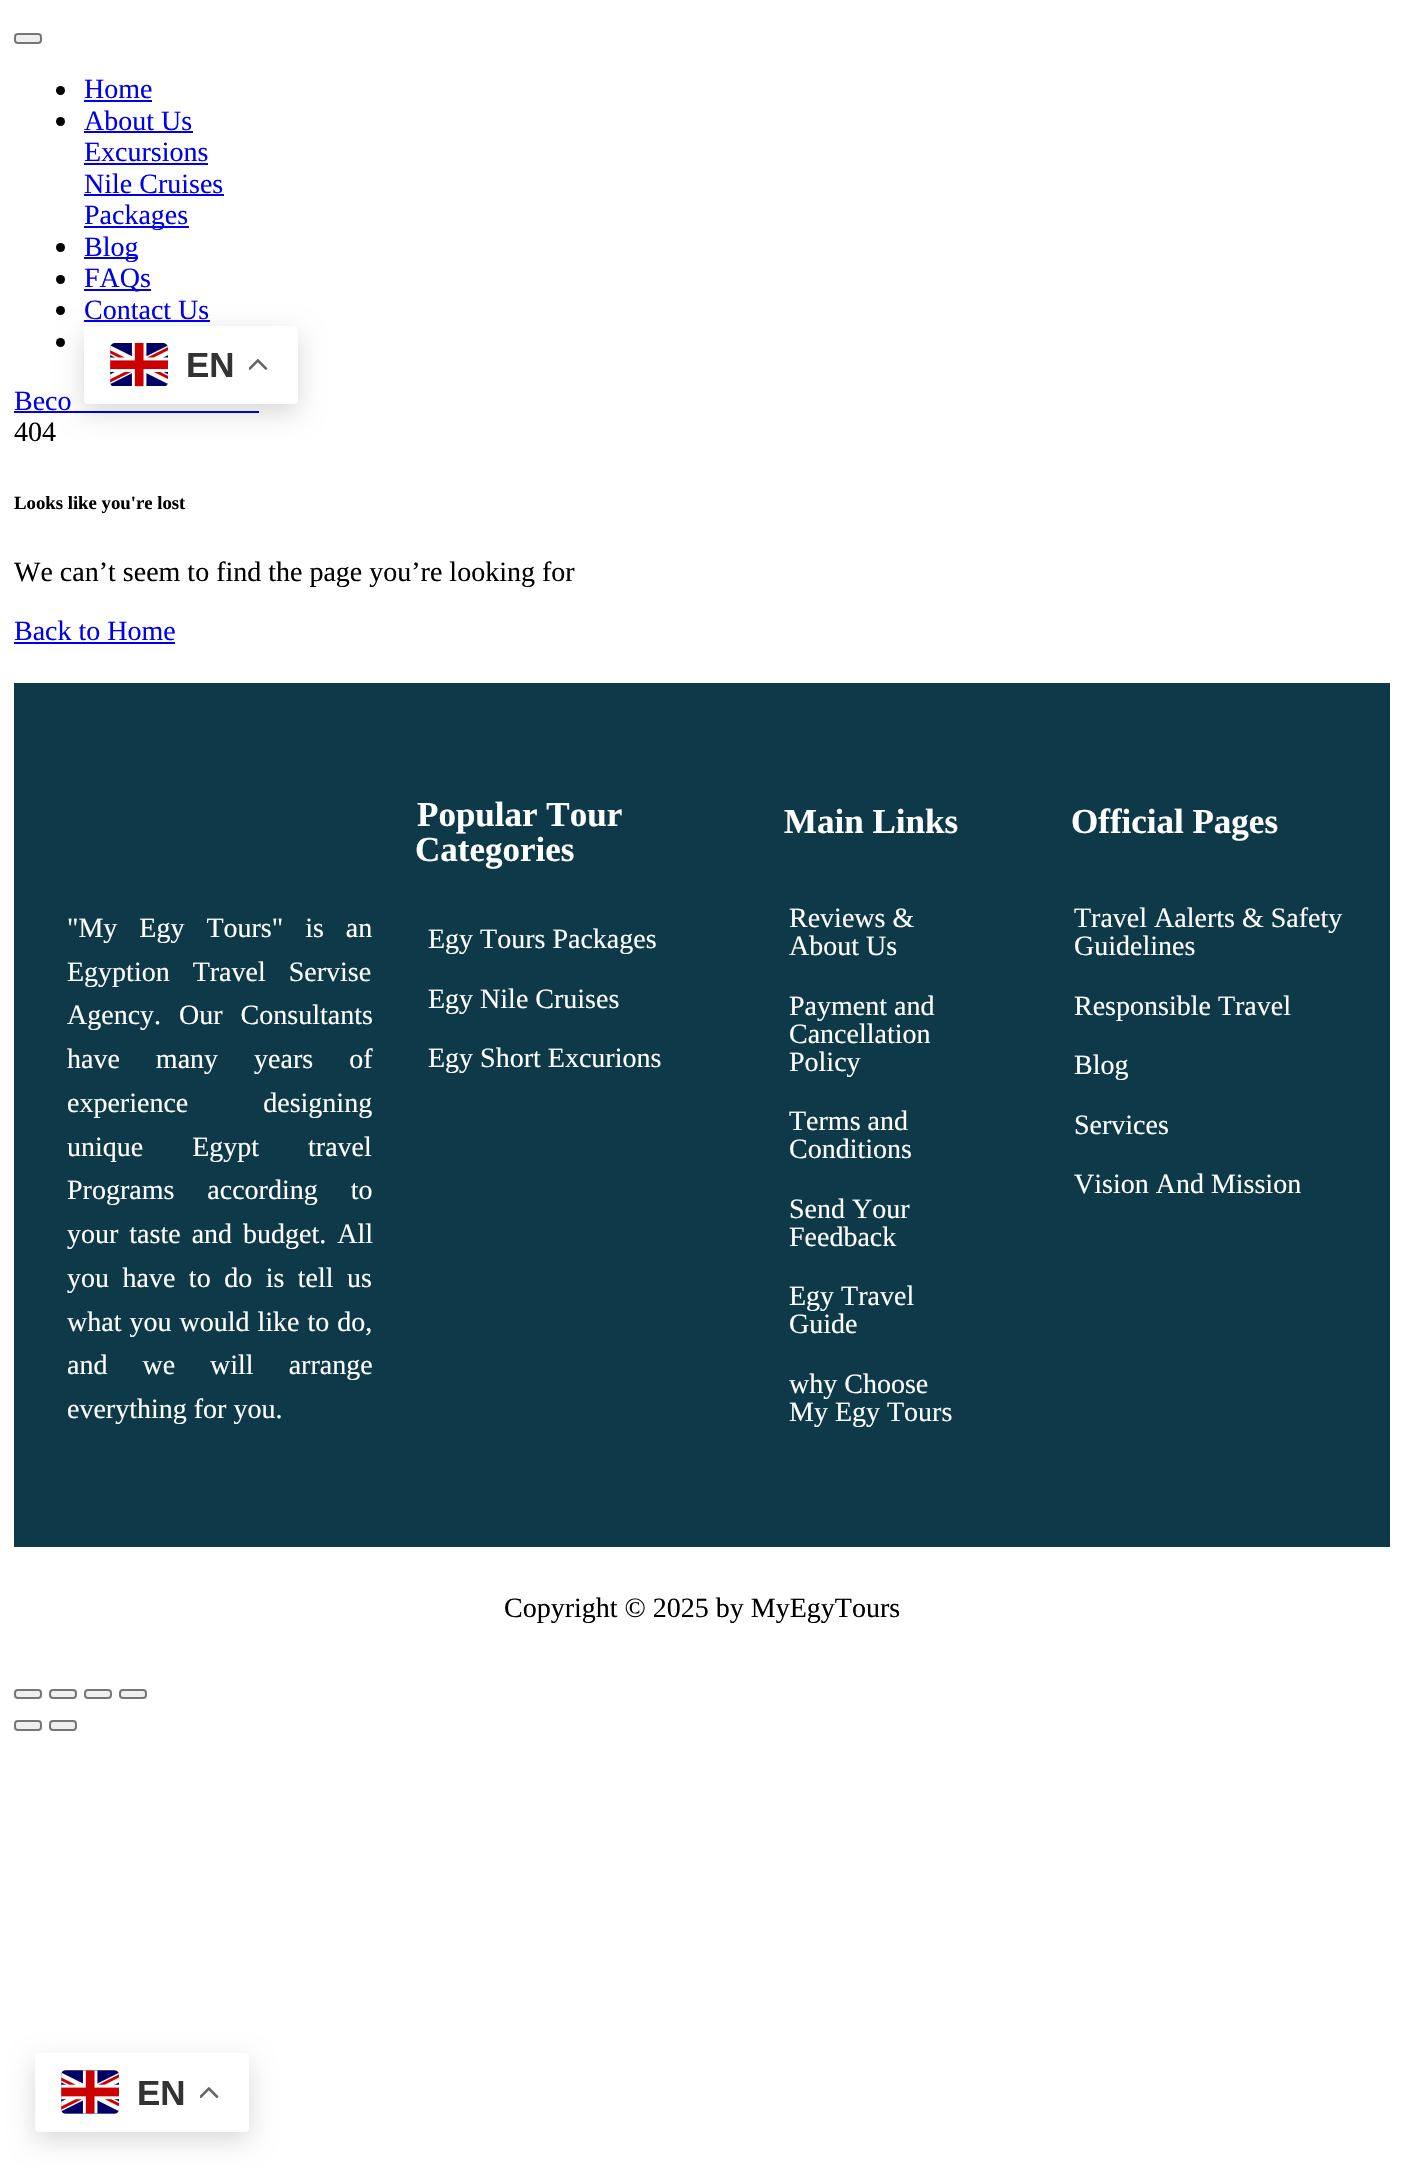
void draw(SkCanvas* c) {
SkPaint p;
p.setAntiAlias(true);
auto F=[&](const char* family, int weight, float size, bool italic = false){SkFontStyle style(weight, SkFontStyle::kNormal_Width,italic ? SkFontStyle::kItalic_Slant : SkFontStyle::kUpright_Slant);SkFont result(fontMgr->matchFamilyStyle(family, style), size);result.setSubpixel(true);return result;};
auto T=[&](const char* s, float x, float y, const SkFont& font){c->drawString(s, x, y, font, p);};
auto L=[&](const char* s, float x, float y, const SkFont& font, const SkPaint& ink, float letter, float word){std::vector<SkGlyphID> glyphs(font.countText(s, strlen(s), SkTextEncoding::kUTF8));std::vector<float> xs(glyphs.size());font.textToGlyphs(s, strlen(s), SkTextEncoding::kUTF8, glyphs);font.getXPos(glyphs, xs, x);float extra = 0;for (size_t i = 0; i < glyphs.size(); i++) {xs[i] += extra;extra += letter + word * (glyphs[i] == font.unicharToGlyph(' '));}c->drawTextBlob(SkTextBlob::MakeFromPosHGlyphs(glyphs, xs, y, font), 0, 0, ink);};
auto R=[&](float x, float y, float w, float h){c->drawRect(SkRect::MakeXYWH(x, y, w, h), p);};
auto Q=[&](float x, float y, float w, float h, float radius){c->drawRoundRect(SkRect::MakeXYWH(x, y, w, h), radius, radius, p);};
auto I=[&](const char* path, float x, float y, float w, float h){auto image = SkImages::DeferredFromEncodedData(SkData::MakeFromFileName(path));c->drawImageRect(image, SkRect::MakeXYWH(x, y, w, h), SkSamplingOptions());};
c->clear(0xffffffff);
p.setColor(0xffefefef);
c->drawRoundRect(SkRect::MakeXYWH(15,34,26,9),3,3,p);
p.setStroke(true);
p.setStrokeWidth(2);
p.setColor(0xff767676);
c->drawRoundRect(SkRect::MakeXYWH(15,34,26,9),3,3,p);
p.setStroke(false);
p.setColor(0xff000000);
c->drawCircle(60.5,90.5,4.5,p);
auto f1 = F("Liberation Serif",400,28);
p.setColor(0xff0000ee);
T("Home",84,98,f1);
R(84,100,68,2);
p.setColor(0xff000000);
c->drawCircle(60.5,121.5,4.5,p);
p.setColor(0xff0000ee);
T("About Us",84,130,f1);
R(84,131,109,2);
T("Excursions",84,161,f1);
R(84,163,124,2);
T("Nile Cruises",84,193,f1);
R(84,194,140,2);
R(84,226,105,2);
T("Packages",84,224,f1);
p.setColor(0xff000000);
c->drawCircle(60.5,247.5,4.5,p);
p.setColor(0xff0000ee);
R(84,257,54,2);
T("Blog",84,256,f1);
p.setColor(0xff000000);
c->drawCircle(60.5,279.5,4.5,p);
p.setColor(0xff0000ee);
R(84,289,67,2);
T("FAQs",84,287,f1);
p.setColor(0xff000000);
c->drawCircle(60.5,310.5,4.5,p);
p.setColor(0xff0000ee);
T("Contact Us",84,319,f1);
R(84,320,126,2);
p.setColor(0xff000000);
c->drawCircle(60.5,342.5,4.5,p);
p.setColor(0xff0000ee);
R(14,411,245,2);
p.setColor(0x26000000);
p.setMaskFilter(SkMaskFilter::MakeBlur(kNormal_SkBlurStyle, 13));
c->drawRoundRect(SkRect::MakeXYWH(84,334,214,79),4,4,p);
p.setMaskFilter(nullptr);
p.setColor(0xffffffff);
Q(84,326,214,78,4);
I("1.png",110,343,58,44);
auto f2 = F("Liberation Sans",700,35);
p.setColor(0xff333333);
T("EN",186,377,f2);
I("2.png",249,358,19,12);
p.setColor(0xff0000ee);
T("Beco",14,410,f1);
p.setColor(0xff000000);
T("404",14,441,f1);
auto f3 = F("Liberation Serif",700,18.75);
T("Looks like you're lost",14,509,f3);
T("We can’t seem to find the page you’re looking for",14,581,f1);
p.setColor(0xff0000ee);
T("Back to Home",14,640,f1);
R(14,642,161,2);
p.setColor(0xff0d3949);
R(14,683,1376,864);
p.setColor(0xffffffff);
L("\"My Egy Tours\" is an",67,937,f1,p,0,15);
L("Egyption Travel Servise",67,981,f1,p,0,16);
L("Agency. Our Consultants",67,1024,f1,p,0,11);
L("have many years of",67,1068,f1,p,0,29);
L("experience designing",67,1112,f1,p,0,68);
L("unique Egypt travel",67,1156,f1,p,0,42);
L("Programs according to",67,1199,f1,p,0,26);
L("your taste and budget. All",67,1243,f1,p,0,4);
L("you have to do is tell us",67,1287,f1,p,0,6.5);
L("what you would like to do,",67,1331,f1,p,0,1);
L("and we will arrange",67,1374,f1,p,0,28);
T("everything for you.",67,1418,f1);
auto f4 = F("Liberation Serif",700,35);
T("Popular Tour",417,826,f4);
T("Categories",415,861,f4);
T("Egy Tours Packages",428,948,f1);
T("Egy Nile Cruises",428,1008,f1);
T("Egy Short Excurions",428,1067,f1);
T("Main Links",784,833,f4);
T("Reviews &",789,927,f1);
T("About Us",789,955,f1);
T("Payment and",789,1015,f1);
T("Cancellation",789,1043,f1);
T("Policy",789,1071,f1);
T("Terms and",789,1130,f1);
T("Conditions",789,1158,f1);
T("Send Your",789,1218,f1);
T("Feedback",789,1246,f1);
T("Egy Travel",789,1305,f1);
T("Guide",789,1333,f1);
T("why Choose",789,1393,f1);
T("My Egy Tours",789,1421,f1);
T("Official Pages",1071,833,f4);
T("Travel Aalerts & Safety",1074,927,f1);
T("Guidelines",1074,955,f1);
T("Responsible Travel",1074,1015,f1);
T("Blog",1074,1074,f1);
T("Services",1074,1134,f1);
T("Vision And Mission",1074,1193,f1);
p.setColor(0xff000000);
T("Copyright © 2025 by MyEgyTours",504,1617,f1);
p.setColor(0xffefefef);
c->drawRoundRect(SkRect::MakeXYWH(15,1690,26,8),3,3,p);
p.setStroke(true);
p.setColor(0xff767676);
c->drawRoundRect(SkRect::MakeXYWH(15,1690,26,8),3,3,p);
p.setStroke(false);
p.setColor(0xffefefef);
c->drawRoundRect(SkRect::MakeXYWH(50,1690,26,8),3,3,p);
p.setStroke(true);
p.setColor(0xff767676);
c->drawRoundRect(SkRect::MakeXYWH(50,1690,26,8),3,3,p);
p.setStroke(false);
p.setColor(0xffefefef);
c->drawRoundRect(SkRect::MakeXYWH(85,1690,26,8),3,3,p);
p.setStroke(true);
p.setColor(0xff767676);
c->drawRoundRect(SkRect::MakeXYWH(85,1690,26,8),3,3,p);
p.setStroke(false);
p.setColor(0xffefefef);
c->drawRoundRect(SkRect::MakeXYWH(120,1690,26,8),3,3,p);
p.setStroke(true);
p.setColor(0xff767676);
c->drawRoundRect(SkRect::MakeXYWH(120,1690,26,8),3,3,p);
p.setStroke(false);
p.setColor(0xffefefef);
c->drawRoundRect(SkRect::MakeXYWH(15,1721,26,9),3,3,p);
p.setStroke(true);
p.setColor(0xff767676);
c->drawRoundRect(SkRect::MakeXYWH(15,1721,26,9),3,3,p);
p.setStroke(false);
p.setColor(0xffefefef);
c->drawRoundRect(SkRect::MakeXYWH(50,1721,26,9),3,3,p);
p.setStroke(true);
p.setColor(0xff767676);
c->drawRoundRect(SkRect::MakeXYWH(50,1721,26,9),3,3,p);
p.setStroke(false);
p.setColor(0x26000000);
p.setMaskFilter(SkMaskFilter::MakeBlur(kNormal_SkBlurStyle, 13));
c->drawRoundRect(SkRect::MakeXYWH(35,2062,214,78),4,4,p);
p.setMaskFilter(nullptr);
p.setColor(0xffffffff);
Q(35,2053,214,79,4);
I("3.png",61,2070,58,44);
p.setColor(0xff333333);
T("EN",137,2105,f2);
I("4.png",200,2087,19,12);
}
